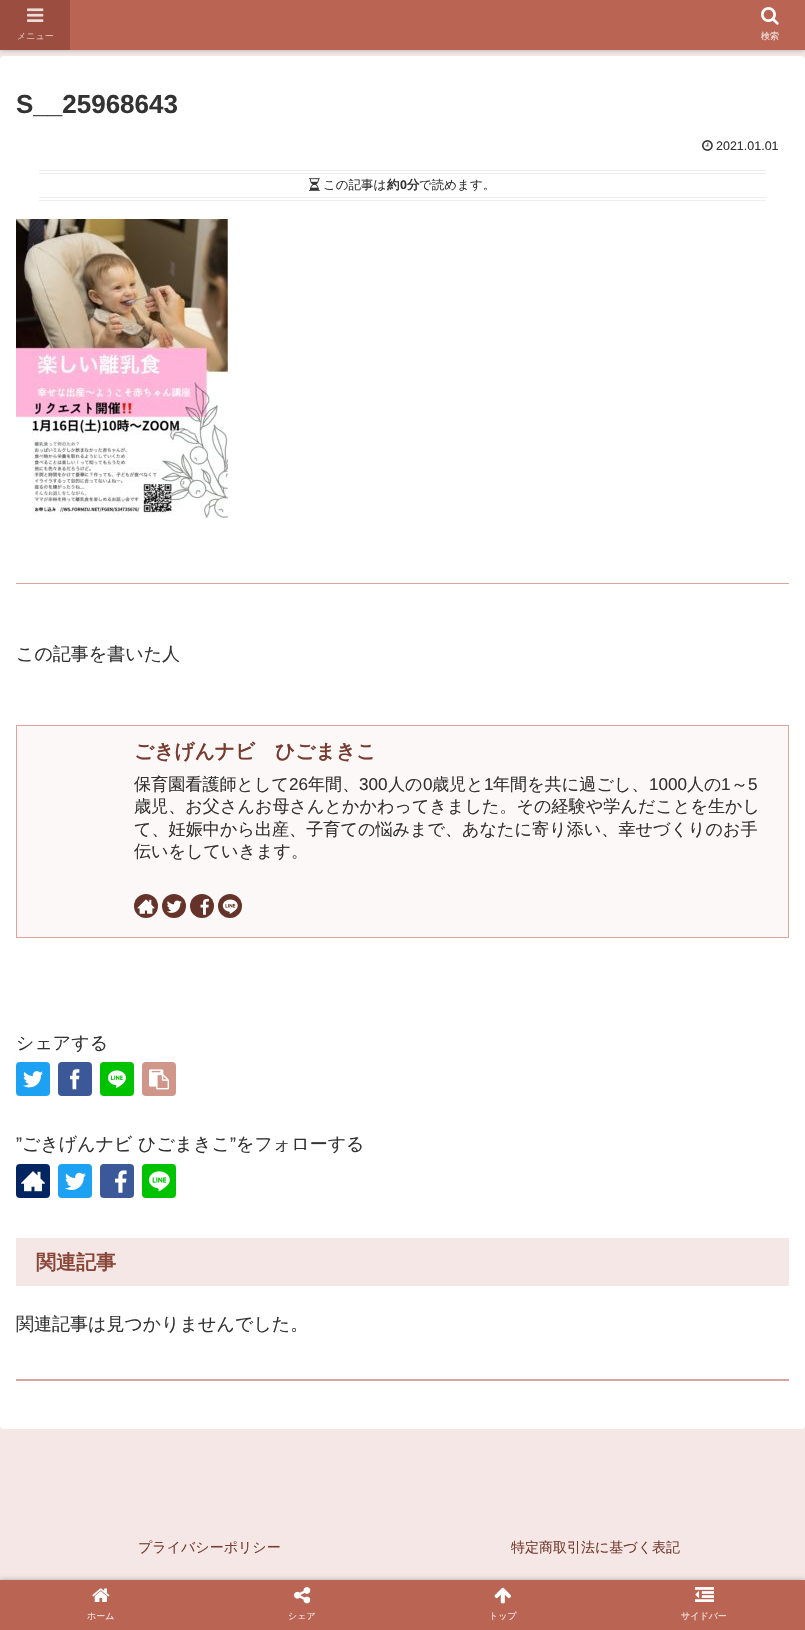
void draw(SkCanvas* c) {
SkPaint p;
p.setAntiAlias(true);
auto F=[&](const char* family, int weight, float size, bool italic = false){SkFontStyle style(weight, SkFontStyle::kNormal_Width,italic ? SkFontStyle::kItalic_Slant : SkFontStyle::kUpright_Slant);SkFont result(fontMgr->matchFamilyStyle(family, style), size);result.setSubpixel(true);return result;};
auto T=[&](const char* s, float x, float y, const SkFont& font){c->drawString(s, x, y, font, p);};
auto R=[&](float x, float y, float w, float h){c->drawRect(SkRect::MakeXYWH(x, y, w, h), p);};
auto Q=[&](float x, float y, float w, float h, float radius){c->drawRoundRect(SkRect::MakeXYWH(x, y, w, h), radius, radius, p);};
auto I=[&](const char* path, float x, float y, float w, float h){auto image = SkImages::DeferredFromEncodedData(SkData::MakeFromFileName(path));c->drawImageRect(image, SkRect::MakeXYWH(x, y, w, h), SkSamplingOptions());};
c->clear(0xfff4e7e5);
p.setColor(0xffffffff);
Q(0,56,805,1373,4);
p.setColor(0xffa9a9a9);
p.setMaskFilter(SkMaskFilter::MakeBlur(kNormal_SkBlurStyle, 2.5));
c->drawRect(SkRect::MakeXYWH(0,0,805,50),p);
p.setMaskFilter(nullptr);
p.setColor(0xffba6553);
R(70,0,735,50);
p.setColor(0xff9b4e3f);
R(0,0,70,50);
I("1.png",27,8,17,14);
auto f1 = F("WenQuanYi Zen Hei",500,9);
p.setColor(0xffdbbfba);
T("メニュー",17,39,f1);
I("2.png",761,7,18,18);
p.setColor(0xfff1e0dd);
T("検索",761,39,f1);
auto f2 = F("Liberation Sans",700,26);
p.setColor(0xff333333);
T("S__25968643",16,113,f2);
I("3.png",702,140,11,11);
auto f3 = F("Liberation Sans",400,12.5);
T("2021.01.01",716,150,f3);
p.setColor(0xffeeeeee);
R(39,170,727,1);
R(39,173,727,1);
R(39,197,727,1);
R(39,200,727,1);
I("4.png",309,178,11,13);
auto f4 = F("WenQuanYi Zen Hei",500,12.5);
p.setColor(0xff333333);
T("この記事は",323,189,f4);
auto f5 = F("WenQuanYi Zen Hei",700,12.5);
T("約",387,189,f5);
auto f6 = F("Liberation Sans",700,12.5);
T("0",400,189,f6);
T("分",407,189,f5);
T("で読めます。",419,189,f4);
I("5.png",16,219,212,300);
p.setColor(0xffd7a69c);
R(16,583,773,1);
auto f7 = F("WenQuanYi Zen Hei",500,18);
p.setColor(0xff333333);
T("この記事を書いた人",16,660,f7);
p.setColor(0xfffcf8f7);
c->drawRect(SkRect::MakeXYWH(16.5,725.5,772,212),p);
p.setStroke(true);
p.setStrokeWidth(1);
p.setColor(0xffd7a69c);
c->drawRect(SkRect::MakeXYWH(16.5,725.5,772,212),p);
auto f8 = F("WenQuanYi Zen Hei",700,19.75);
p.setStroke(false);
p.setColor(0xff773c30);
T("ごきげんナビ　ひごまきこ",134,758,f8);
auto f9 = F("WenQuanYi Zen Hei",500,17.1);
p.setColor(0xff333333);
T("保育園看護師として",134,790,f9);
auto f10 = F("Liberation Sans",400,17.1);
T("26",289,790,f10);
T("年間、",308,790,f9);
T("300",359,790,f10);
T("人の",388,790,f9);
T("0",423,790,f10);
T("歳児と",432,790,f9);
T("1",484,790,f10);
T("年間を共に過ごし、",493,790,f9);
T("1000",649,790,f10);
T("人の",687,790,f9);
T("1",721,790,f10);
T("～",731,790,f9);
T("5",748,790,f10);
T("歳児、お父さんお母さんとかかわってきました。その経験や学んだことを生かし",134,812,f9);
T("て、妊娠中から出産、子育ての悩みまで、あなたに寄り添い、幸せづくりのお手",134,835,f9);
T("伝いをしていきます。",134,857,f9);
p.setColor(0xff653329);
c->drawCircle(146,906,12,p);
I("6.png",137,899,18,15);
c->drawCircle(174,906,12,p);
I("7.png",167,900,15,13);
c->drawCircle(202,906,12,p);
I("8.png",200,898,9,17);
c->drawCircle(230,906,12,p);
I("9.png",222,899,16,15);
p.setColor(0xff333333);
T("シェアする",16,1049,f7);
p.setColor(0xff1da1f2);
Q(16,1062,34,34,4);
I("10.png",23,1071,20,17);
p.setColor(0xff3b5998);
Q(58,1062,34,34,4);
I("11.png",70,1069,10,21);
p.setColor(0xff00c300);
Q(100,1062,34,34,4);
I("12.png",108,1070,18,18);
p.setColor(0xffd0968a);
Q(142,1062,34,34,4);
I("13.png",149,1069,20,21);
auto f11 = F("Liberation Sans",400,18);
p.setColor(0xff333333);
T("”",16,1150,f11);
T("ごきげんナビ",22,1150,f7);
T("ひごまきこ",138,1150,f7);
T("”",230,1150,f11);
T("をフォローする",236,1150,f7);
p.setColor(0xff002561);
Q(16,1164,34,34,4);
I("14.png",21,1171,24,21);
p.setColor(0xff1da1f2);
Q(58,1164,34,34,4);
I("15.png",65,1172,21,18);
p.setColor(0xff3b5998);
Q(100,1164,34,34,4);
I("16.png",114,1170,13,23);
p.setColor(0xff00c300);
Q(142,1164,34,34,4);
I("17.png",148,1171,22,21);
p.setColor(0xfff4e7e5);
R(16,1238,773,48);
auto f12 = F("WenQuanYi Zen Hei",700,20);
p.setColor(0xff894537);
T("関連記事",36,1269,f12);
p.setColor(0xff333333);
T("関連記事は見つかりませんでした。",16,1330,f7);
p.setColor(0xffd7a69c);
R(16,1379,773,2);
auto f13 = F("WenQuanYi Zen Hei",500,14);
p.setColor(0xff773c30);
T("プライバシーポリシー",138,1552,f13);
T("特定商取引法に基づく表記",511,1552,f13);
p.setColor(0xffa9a9a9);
p.setMaskFilter(SkMaskFilter::MakeBlur(kNormal_SkBlurStyle, 2.5));
c->drawRect(SkRect::MakeXYWH(0,1580,805,50),p);
p.setMaskFilter(nullptr);
p.setColor(0xffba6553);
R(0,1580,805,50);
I("18.png",92,1588,18,14);
p.setColor(0xfff1e0dd);
T("ホーム",87,1619,f1);
I("19.png",294,1587,17,17);
T("シェア",288,1619,f1);
I("20.png",494,1587,17,17);
T("トップ",489,1619,f1);
I("21.png",695,1587,19,15);
T("サイドバー",681,1619,f1);
}
